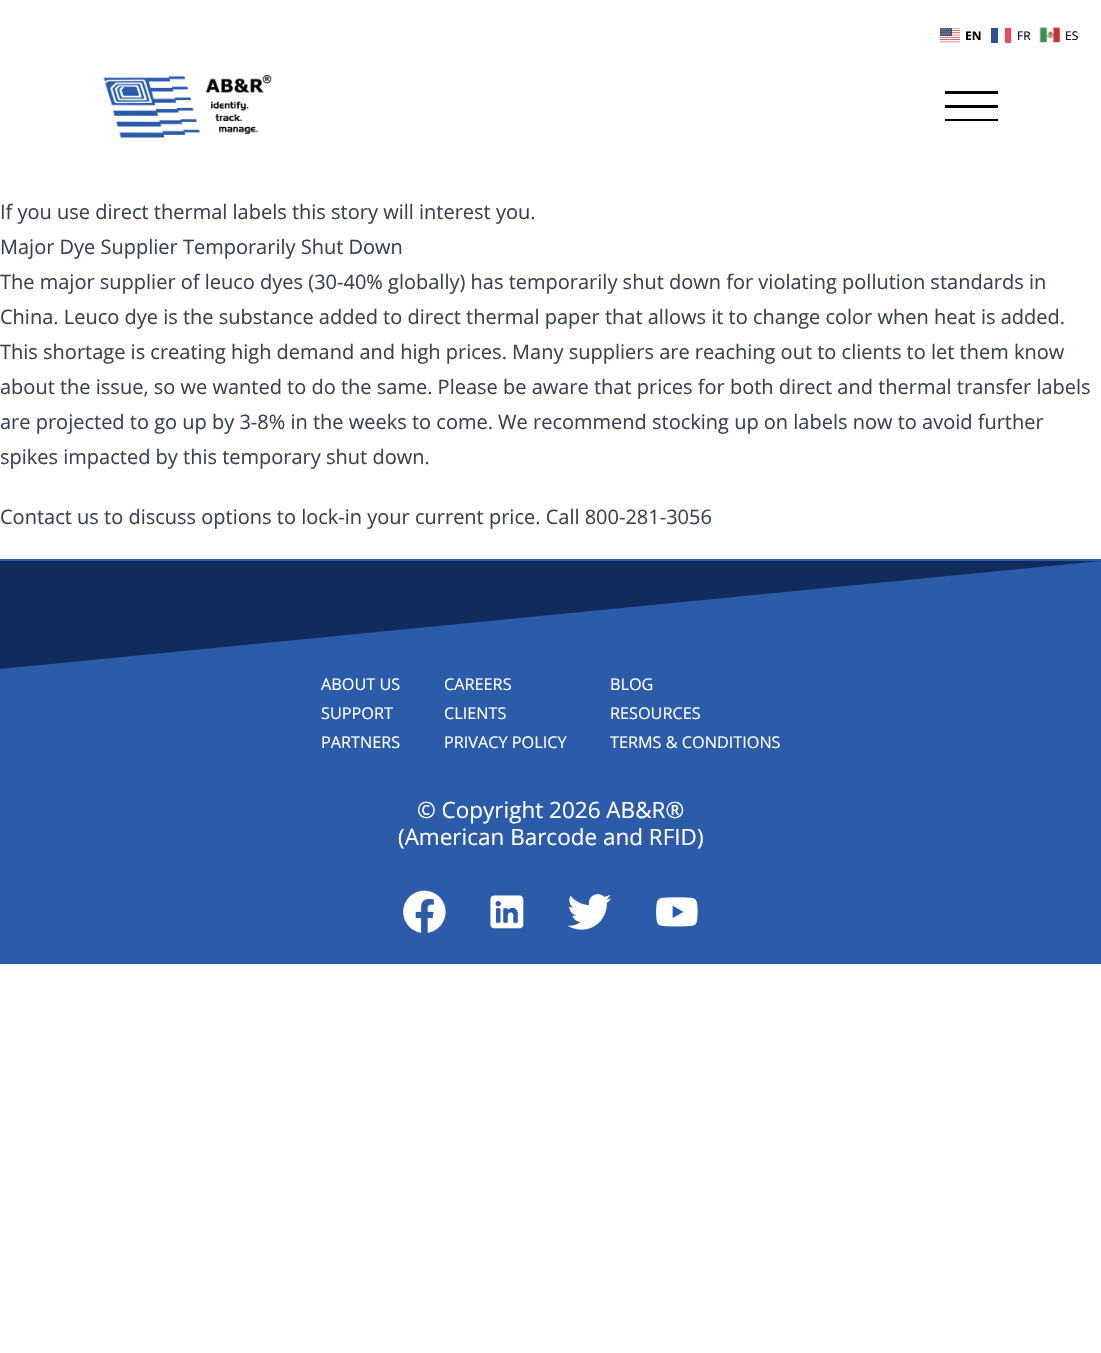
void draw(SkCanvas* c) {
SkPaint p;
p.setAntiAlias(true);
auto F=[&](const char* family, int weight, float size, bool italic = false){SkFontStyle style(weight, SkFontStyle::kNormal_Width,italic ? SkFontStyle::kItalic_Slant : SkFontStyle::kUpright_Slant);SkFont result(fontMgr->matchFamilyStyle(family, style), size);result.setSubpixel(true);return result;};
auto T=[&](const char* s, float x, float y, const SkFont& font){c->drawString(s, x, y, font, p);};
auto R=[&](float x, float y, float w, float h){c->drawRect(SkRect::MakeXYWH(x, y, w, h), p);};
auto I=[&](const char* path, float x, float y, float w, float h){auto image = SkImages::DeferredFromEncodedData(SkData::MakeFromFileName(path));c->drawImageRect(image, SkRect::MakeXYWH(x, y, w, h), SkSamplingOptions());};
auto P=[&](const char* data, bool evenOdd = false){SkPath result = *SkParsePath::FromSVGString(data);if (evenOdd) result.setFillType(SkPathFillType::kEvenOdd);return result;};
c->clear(0xffffffff);
I("1.png",940,28,20,15);
auto f1 = F("Open Sans",700,12);
p.setColor(0xff000000);
T("EN",965,40,f1);
auto f2 = F("Open Sans",400,12);
T("FR",1017,40,f2);
p.setColor(0xff335199);
R(991,28,7,15);
p.setColor(0xfff54659);
R(1005,28,6,15);
I("2.png",1039,27,21,16);
p.setColor(0xff000000);
T("ES",1065,40,f2);
I("3.png",103,75,169,63);
R(945,91,53,3);
R(945,105,53,3);
R(945,119,53,2);
auto f3 = F("Open Sans",400,20);
p.setColor(0xff374151);
T("If you use direct thermal labels this story will interest you.",0,219,f3);
T("Major Dye Supplier Temporarily Shut Down",0,254,f3);
T("The major supplier of leuco dyes (30-40% globally) has temporarily shut down for violating pollution standards in",0,289,f3);
T("China. Leuco dye is the substance added to direct thermal paper that allows it to change color when heat is added.",0,324,f3);
T("This shortage is creating high demand and high prices. Many suppliers are reaching out to clients to let them know",0,359,f3);
T("about the issue, so we wanted to do the same. Please be aware that prices for both direct and thermal transfer labels",0,394,f3);
T("are projected to go up by 3-8% in the weeks to come. We recommend stocking up on labels now to avoid further",0,429,f3);
T("spikes impacted by this temporary shut down.",0,464,f3);
T("Contact us to discuss options to lock-in your current price. Call 800-281-3056",0,524,f3);
p.setColor(0xff2c5ba9);
R(0,559,1101,405);
p.setColor(0xff0f2c5c);
c->drawPath(P("M1101 561l-1101 108v-108z"),p);
auto f4 = F("Open Sans",400,16.25);
p.setColor(0xffffffff);
T("ABOUT US",321,690,f4);
T("SUPPORT",321,719,f4);
T("PARTNERS",321,748,f4);
T("CAREERS",444,690,f4);
T("CLIENTS",444,719,f4);
T("PRIVACY POLICY",444,748,f4);
T("BLOG",610,690,f4);
T("RESOURCES",610,719,f4);
T("TERMS & CONDITIONS",610,748,f4);
auto f5 = F("Open Sans",400,22.5);
T("© Copyright 2026 AB&R®",417,818,f5);
T("(American Barcode and RFID)",398,845,f5);
I("4.png",403,890,43,43);
I("5.png",490,895,34,34);
I("6.png",568,894,43,36);
I("7.png",656,897,42,30);
}
